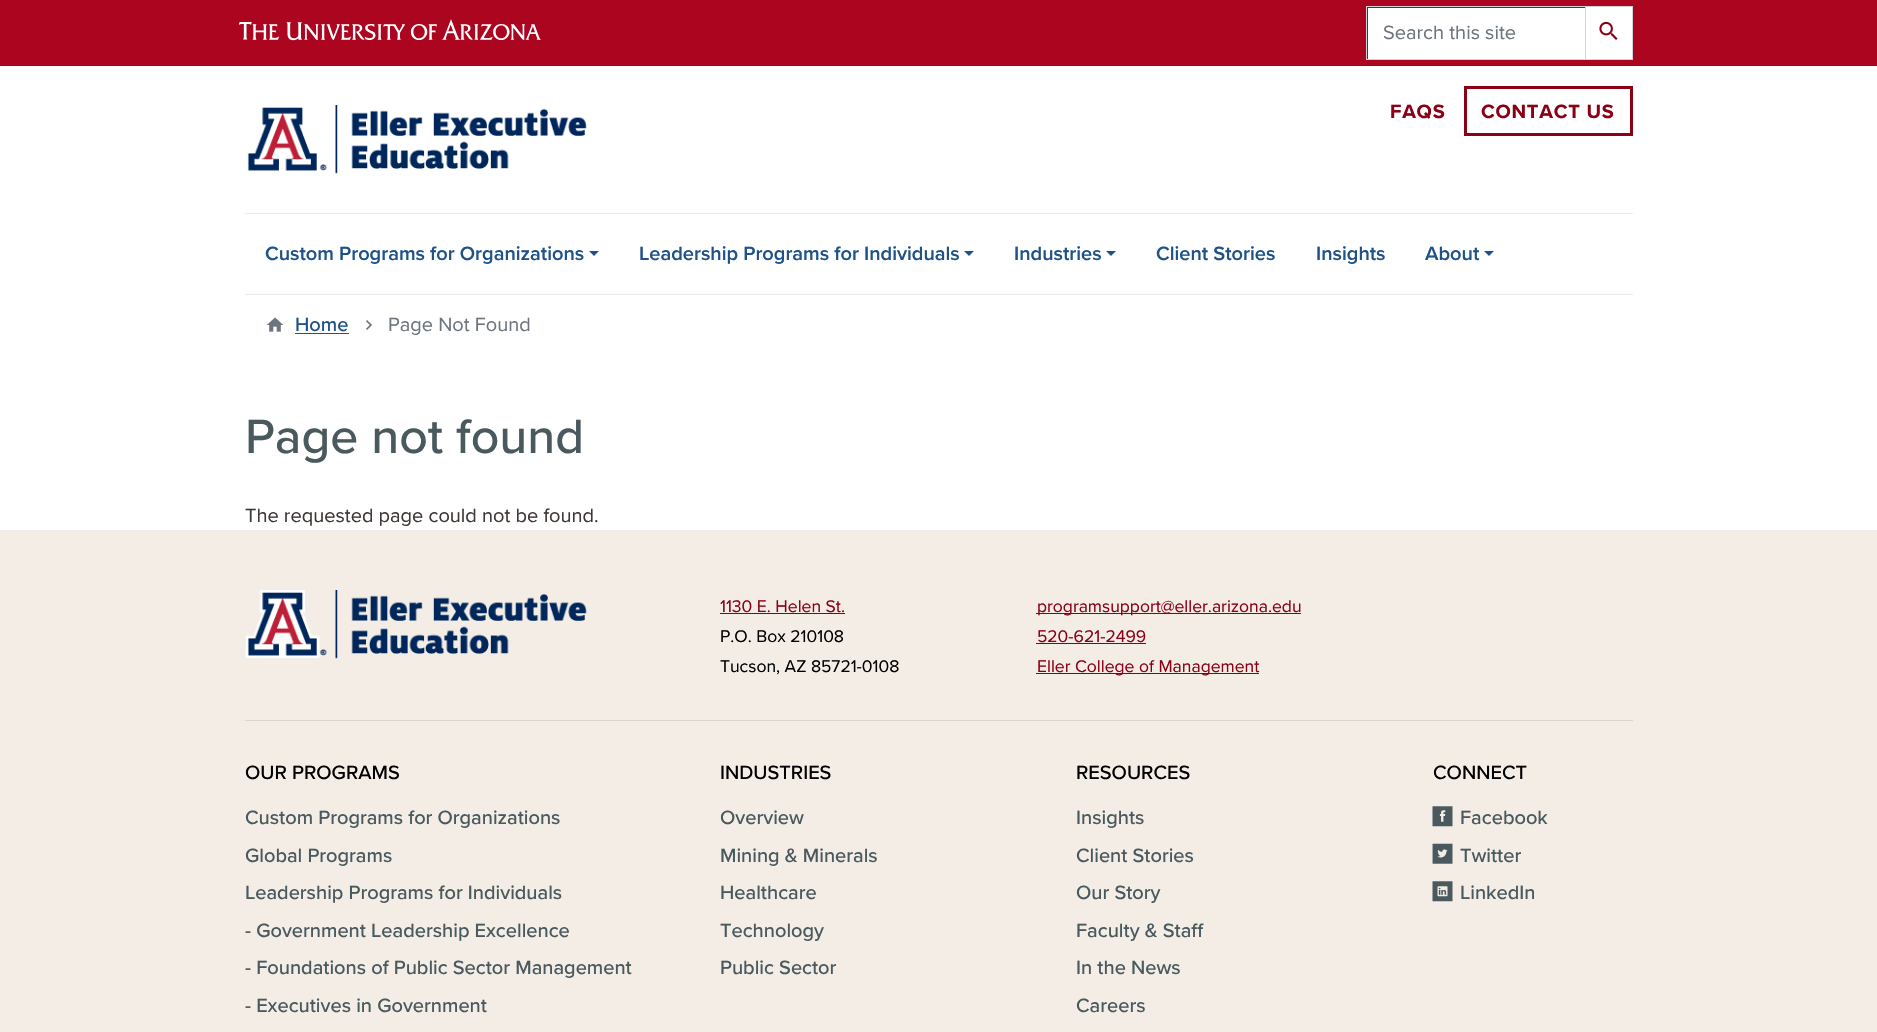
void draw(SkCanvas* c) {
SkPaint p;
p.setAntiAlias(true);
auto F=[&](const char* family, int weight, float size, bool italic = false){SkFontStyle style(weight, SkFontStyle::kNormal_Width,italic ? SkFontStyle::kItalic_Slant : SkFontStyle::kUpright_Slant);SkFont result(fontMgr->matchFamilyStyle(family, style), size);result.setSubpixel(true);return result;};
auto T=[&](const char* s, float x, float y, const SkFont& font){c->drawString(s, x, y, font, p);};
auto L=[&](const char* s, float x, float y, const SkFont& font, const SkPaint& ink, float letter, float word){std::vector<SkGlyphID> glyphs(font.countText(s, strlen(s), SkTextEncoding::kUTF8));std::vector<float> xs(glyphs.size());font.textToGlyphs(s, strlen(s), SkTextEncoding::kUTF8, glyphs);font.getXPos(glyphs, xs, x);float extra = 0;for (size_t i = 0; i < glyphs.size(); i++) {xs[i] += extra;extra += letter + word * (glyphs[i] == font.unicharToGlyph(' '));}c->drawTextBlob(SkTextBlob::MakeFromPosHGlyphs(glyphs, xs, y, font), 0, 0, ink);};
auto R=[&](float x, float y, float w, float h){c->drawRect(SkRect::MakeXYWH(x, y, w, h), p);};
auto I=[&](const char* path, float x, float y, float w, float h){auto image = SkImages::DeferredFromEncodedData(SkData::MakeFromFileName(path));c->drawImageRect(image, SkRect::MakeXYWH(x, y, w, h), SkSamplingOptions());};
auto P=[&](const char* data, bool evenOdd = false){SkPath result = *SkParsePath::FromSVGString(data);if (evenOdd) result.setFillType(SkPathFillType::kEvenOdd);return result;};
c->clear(0xffffffff);
p.setColor(0xffab0520);
R(0,0,1877,66);
I("1.png",239,19,302,22);
p.setColor(0xffffffff);
R(1368,8,217,51);
p.setStroke(true);
p.setStrokeWidth(1);
p.setColor(0xffced4da);
c->drawRect(SkRect::MakeXYWH(1366.5,6.5,219,53),p);
auto f1 = F("Proxima Nova",400,20);
p.setStroke(false);
p.setColor(0xff6c757d);
T("Search this site",1383,39,f1);
p.setColor(0xffffffff);
c->drawRect(SkRect::MakeXYWH(1585.5,6.5,47,53),p);
p.setStroke(true);
p.setColor(0xffced4da);
c->drawRect(SkRect::MakeXYWH(1585.5,6.5,47,53),p);
I("2.png",1599,21,19,19);
I("3.png",247,105,340,69);
auto f2 = F("Proxima Nova",700,20);
p.setStroke(false);
p.setColor(0xff8b0015);
L("FAQS",1390,118,f2,p,.75,0);
p.setStroke(true);
p.setStrokeWidth(3);
c->drawRect(SkRect::MakeXYWH(1465.5,87.5,166,47),p);
p.setStroke(false);
L("CONTACT US",1481,118,f2,p,.75,0);
p.setColor(0xffe9ecef);
R(245,213,1388,1);
R(245,294,1388,1);
auto f3 = F("Proxima Nova",600,20);
p.setColor(0xff1e5288);
T("Custom Programs for Organizations",265,260,f3);
c->drawPath(P("M589 251h10l-5 5z"),p);
T("Leadership Programs for Individuals",639,260,f3);
c->drawPath(P("M964 251h10l-5 5z"),p);
T("Industries",1014,260,f3);
c->drawPath(P("M1106 251h10l-5 5z"),p);
T("Client Stories",1156,260,f3);
T("Insights",1316,260,f3);
T("About",1425,260,f3);
c->drawPath(P("M1484 251h10l-5 5z"),p);
I("4.png",266,317,18,15);
auto f4 = F("Proxima Nova",500,20);
T("Home",295,331,f4);
R(295,333,54,1);
I("5.png",366,320,6,10);
p.setColor(0xff6c757d);
T("Page Not Found",388,331,f1);
auto f5 = F("Proxima Nova",500,50);
p.setColor(0xff49595e);
T("Page not found",245,453,f5);
p.setColor(0xff403635);
T("The requested page could not be found.",245,522,f1);
p.setColor(0xfff4ede5);
R(0,530,1877,502);
I("6.png",245,590,342,69);
auto f6 = F("Proxima Nova",400,17.5);
p.setColor(0xff8b0015);
T("1130 E. Helen St.",720,612,f6);
R(720,613,125,1);
p.setColor(0xff000000);
T("P.O. Box 210108",720,642,f6);
T("Tucson, AZ 85721-0108",720,672,f6);
p.setColor(0xff8b0015);
R(1036,613,265,1);
T("programsupport@eller.arizona.edu",1037,612,f6);
T("520-621-2499",1037,642,f6);
R(1036,643,110,1);
R(1036,673,223,1);
T("Eller College of Management",1037,672,f6);
p.setColor(0xffdcd5ce);
R(245,720,1388,1);
p.setColor(0xff000000);
T("OUR PROGRAMS",245,779,f4);
p.setColor(0xff49595e);
T("Custom Programs for Organizations",245,824,f4);
T("Global Programs",245,862,f4);
T("Leadership Programs for Individuals",245,899,f4);
T("- Government Leadership Excellence",245,937,f4);
T("- Foundations of Public Sector Management",245,974,f4);
T("- Executives in Government",245,1012,f4);
p.setColor(0xff000000);
T("INDUSTRIES",720,779,f4);
p.setColor(0xff49595e);
T("Overview",720,824,f4);
T("Mining & Minerals",720,862,f4);
T("Healthcare",720,899,f4);
T("Technology",720,937,f4);
T("Public Sector",720,974,f4);
p.setColor(0xff000000);
T("RESOURCES",1076,779,f4);
p.setColor(0xff49595e);
T("Insights",1076,824,f4);
T("Client Stories",1076,862,f4);
T("Our Story",1076,899,f4);
T("Faculty & Staff",1076,937,f4);
T("In the News",1076,974,f4);
T("Careers",1076,1012,f4);
p.setColor(0xff000000);
T("CONNECT",1433,779,f4);
I("7.png",1432,806,21,21);
p.setColor(0xff49595e);
T("Facebook",1460,824,f4);
I("8.png",1432,843,21,21);
T("Twitter",1460,862,f4);
I("9.png",1432,881,21,21);
T("LinkedIn",1460,899,f4);
}
